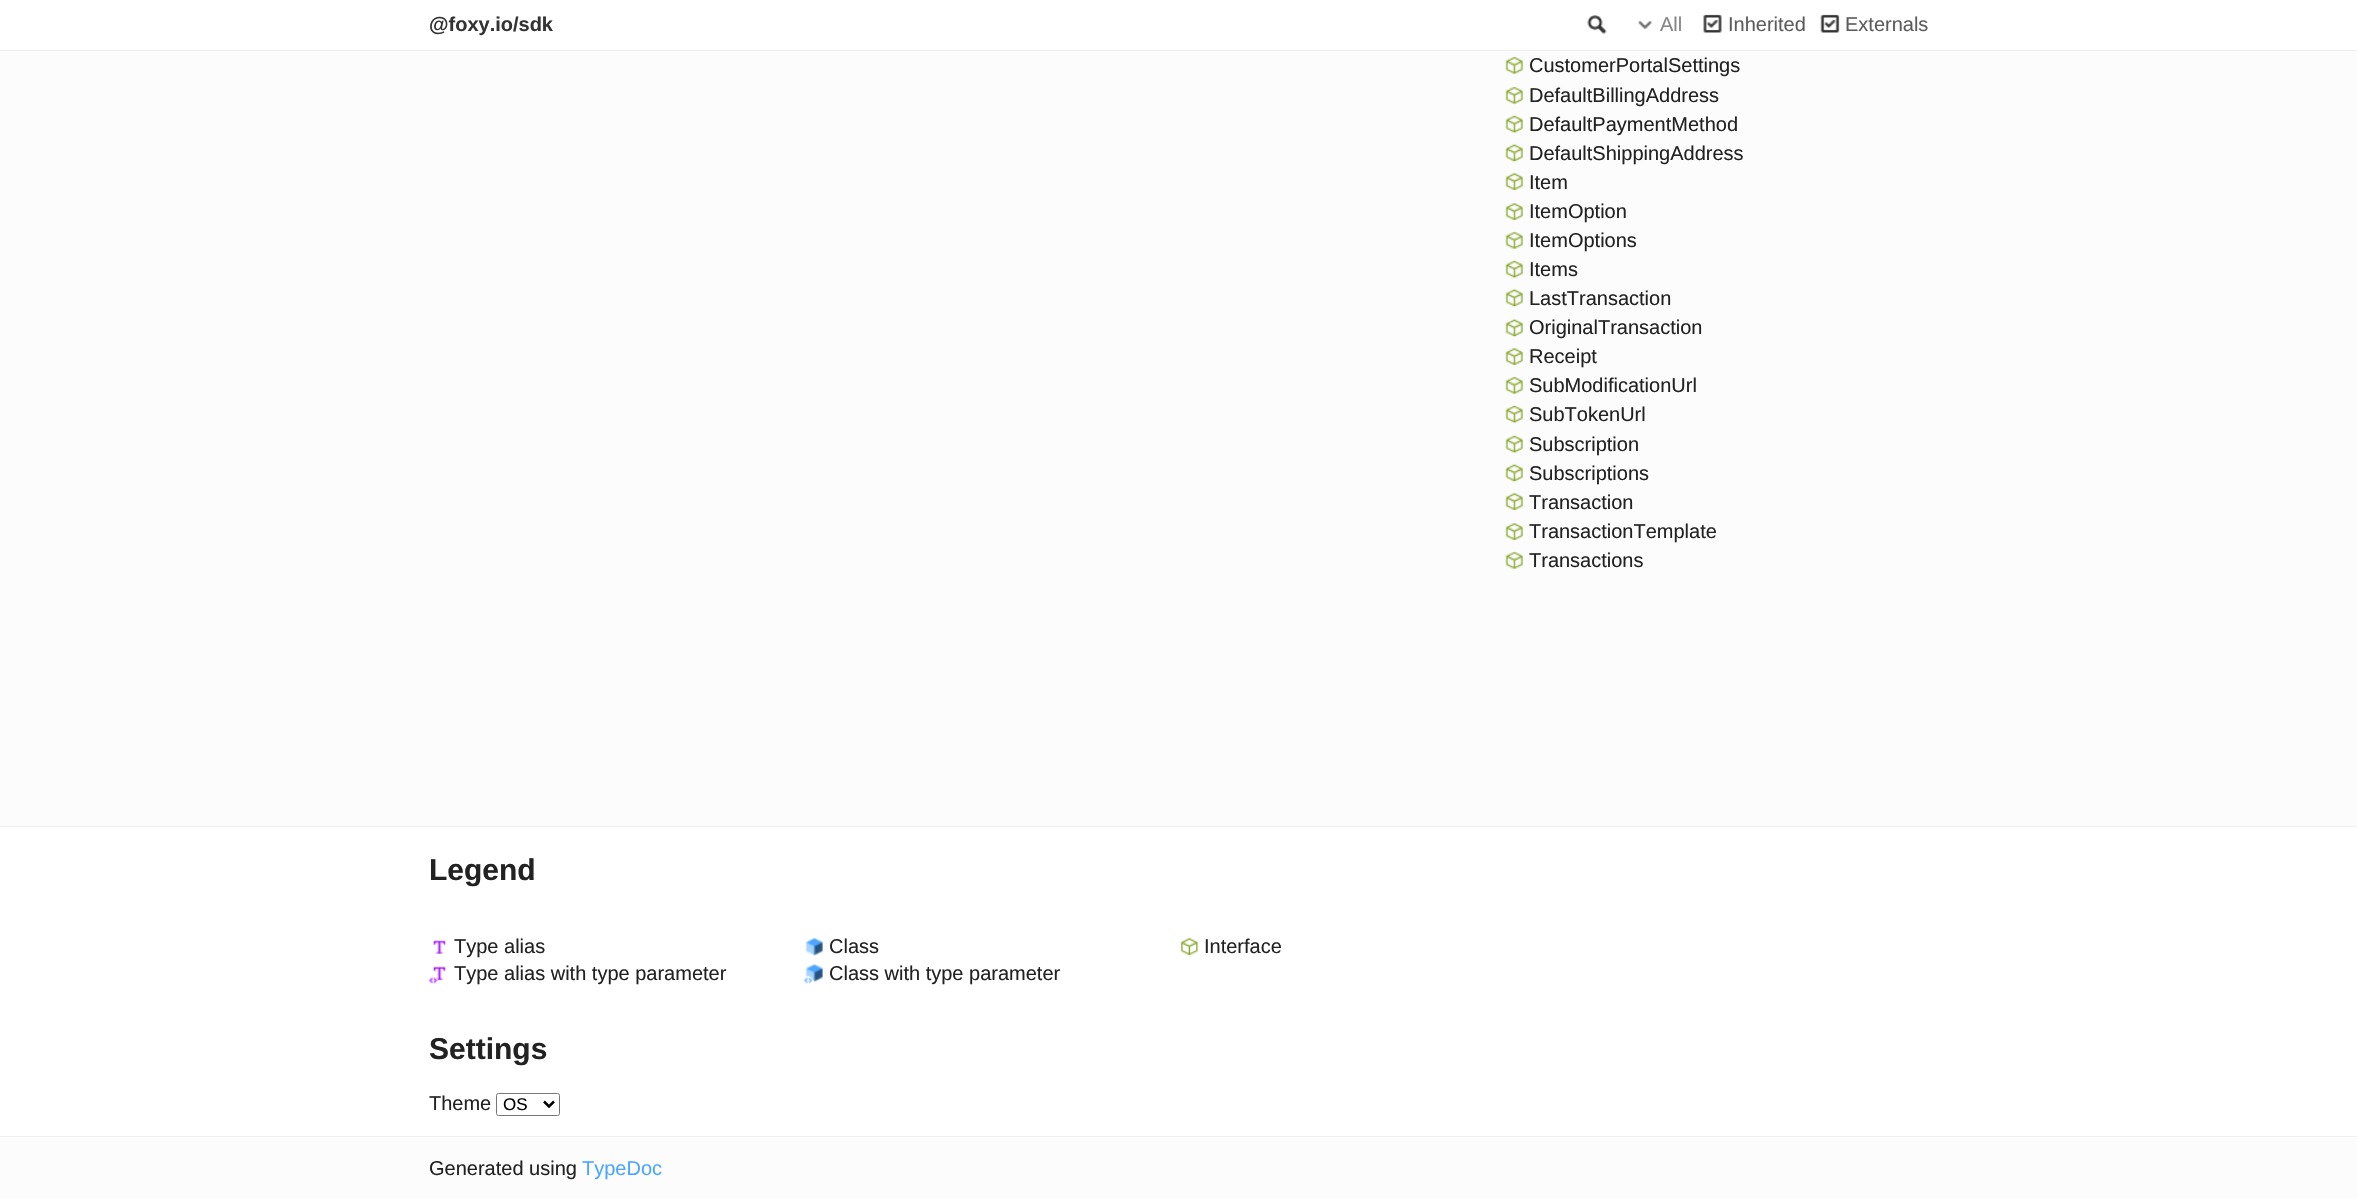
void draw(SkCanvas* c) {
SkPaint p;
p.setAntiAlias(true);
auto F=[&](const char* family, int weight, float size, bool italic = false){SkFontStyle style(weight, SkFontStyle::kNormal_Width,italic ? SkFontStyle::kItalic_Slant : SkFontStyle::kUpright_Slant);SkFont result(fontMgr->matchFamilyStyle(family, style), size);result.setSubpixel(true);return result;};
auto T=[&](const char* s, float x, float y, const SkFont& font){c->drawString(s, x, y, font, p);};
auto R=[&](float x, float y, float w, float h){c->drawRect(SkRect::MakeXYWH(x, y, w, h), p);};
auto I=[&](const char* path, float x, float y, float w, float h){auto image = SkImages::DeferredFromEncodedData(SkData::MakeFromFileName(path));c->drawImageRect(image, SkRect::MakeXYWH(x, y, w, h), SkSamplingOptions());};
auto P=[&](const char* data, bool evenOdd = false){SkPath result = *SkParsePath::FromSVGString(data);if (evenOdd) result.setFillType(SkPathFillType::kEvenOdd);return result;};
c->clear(0xfffcfcfc);
p.setColor(0xffffffff);
R(0,0,2357,50);
p.setColor(0xffeeeeee);
R(0,50,2357,1);
auto f1 = F("Liberation Sans",700,20);
p.setColor(0xff333333);
T("@foxy.io/sdk",429,31,f1);
I("1.png",1587,14,20,20);
I("2.png",1638,21,14,8);
auto f2 = F("Liberation Sans",400,20);
p.setColor(0xff858585);
T("All",1660,31,f2);
I("3.png",1703,14,19,19);
p.setColor(0xff5c5c5c);
T("Inherited",1728,31,f2);
I("4.png",1820,14,20,19);
T("Externals",1845,31,f2);
I("5.png",1505,56,18,19);
p.setColor(0xff222222);
T("CustomerPortalSettings",1529,72,f2);
I("5.png",1505,86,18,19);
T("DefaultBillingAddress",1529,102,f2);
I("6.png",1505,115,18,19);
T("DefaultPaymentMethod",1529,131,f2);
I("7.png",1505,143,18,20);
T("DefaultShippingAddress",1529,160,f2);
I("8.png",1505,172,18,19);
T("Item",1529,189,f2);
I("8.png",1505,202,18,19);
T("ItemOption",1529,218,f2);
I("5.png",1505,231,18,19);
T("ItemOptions",1529,247,f2);
I("6.png",1505,260,18,19);
T("Items",1529,276,f2);
I("7.png",1505,288,18,20);
T("LastTransaction",1529,305,f2);
I("7.png",1505,318,18,20);
T("OriginalTransaction",1529,334,f2);
I("8.png",1505,347,18,19);
T("Receipt",1529,363,f2);
I("5.png",1505,376,18,19);
T("SubModificationUrl",1529,392,f2);
I("6.png",1505,405,18,19);
T("SubTokenUrl",1529,421,f2);
I("6.png",1505,435,18,19);
T("Subscription",1529,451,f2);
I("7.png",1505,463,18,20);
T("Subscriptions",1529,480,f2);
I("8.png",1505,492,18,19);
T("Transaction",1529,509,f2);
I("8.png",1505,522,18,19);
T("TransactionTemplate",1529,538,f2);
I("5.png",1505,551,18,19);
T("Transactions",1529,567,f2);
p.setColor(0xffffffff);
R(0,827,2357,311);
p.setColor(0xffeeeeee);
R(0,826,2357,1);
R(0,1136,2357,1);
auto f3 = F("Liberation Sans",700,30);
p.setColor(0xff222222);
T("Legend",429,880,f3);
I("9.png",433,940,13,14);
T("Type alias",454,953,f2);
I("10.png",428,966,18,18);
T("Type alias with type parameter",454,980,f2);
I("11.png",805,937,18,19);
T("Class",829,953,f2);
I("12.png",803,963,20,21);
T("Class with type parameter",829,980,f2);
I("13.png",1181,937,17,19);
T("Interface",1204,953,f2);
T("Settings",429,1059,f3);
T("Theme",429,1110,f2);
p.setStroke(true);
p.setStrokeWidth(1);
p.setColor(0xff767676);
c->drawRoundRect(SkRect::MakeXYWH(496.5,1093.5,63,22),2,2,p);
p.setStrokeWidth(2.5);
p.setColor(0xff000000);
c->drawPath(P("M544 1101.5l5 5l5-5"),p);
auto f4 = F("Liberation Sans",400,17);
p.setStroke(false);
T("OS",503,1110,f4);
p.setColor(0xff222222);
T("Generated using",429,1175,f2);
p.setColor(0xff4da6ff);
T("TypeDoc",582,1175,f2);
}
